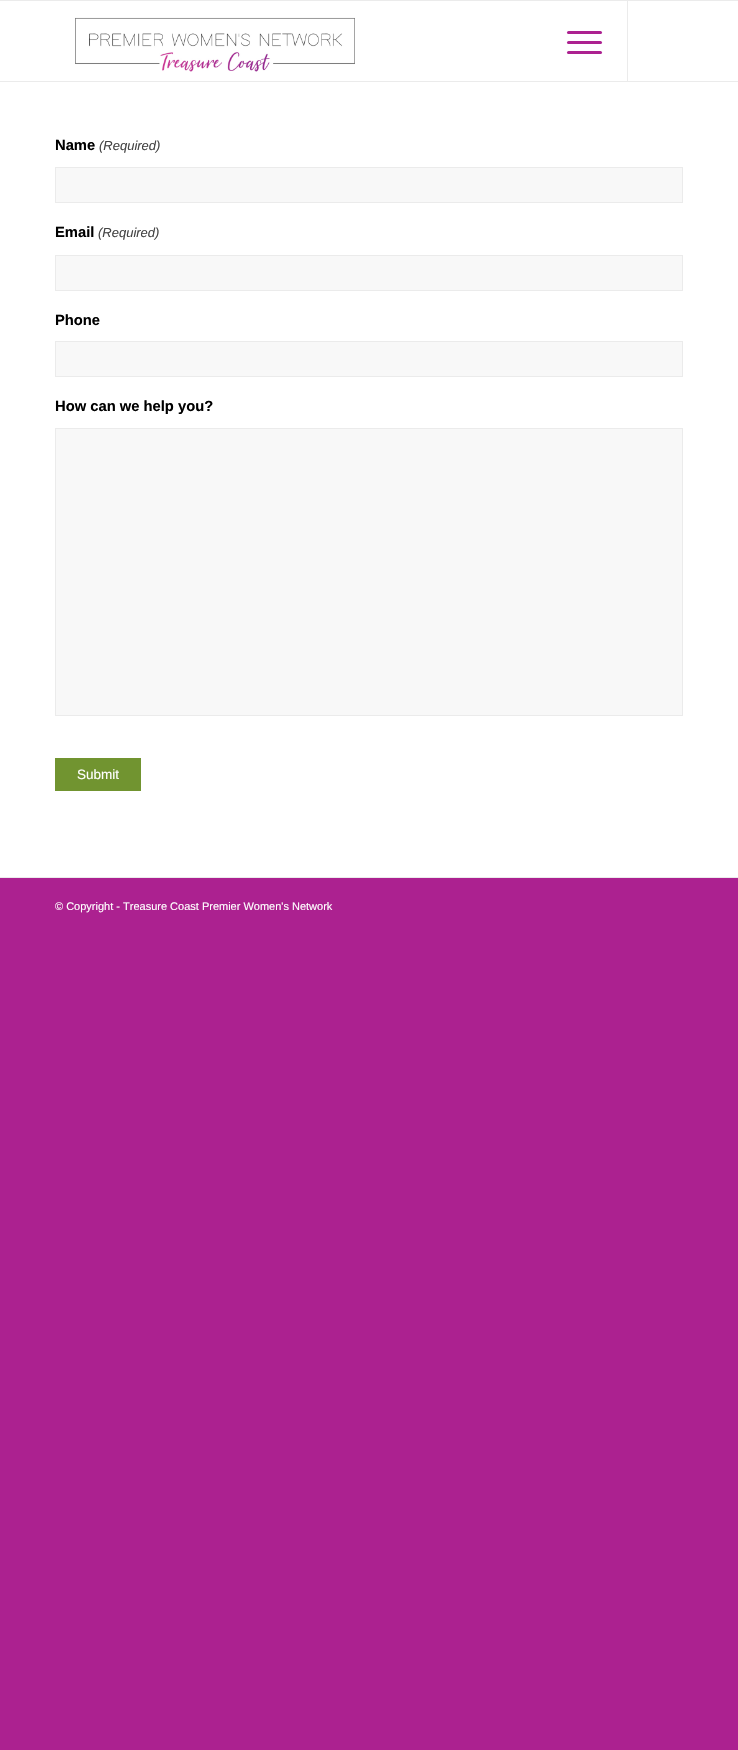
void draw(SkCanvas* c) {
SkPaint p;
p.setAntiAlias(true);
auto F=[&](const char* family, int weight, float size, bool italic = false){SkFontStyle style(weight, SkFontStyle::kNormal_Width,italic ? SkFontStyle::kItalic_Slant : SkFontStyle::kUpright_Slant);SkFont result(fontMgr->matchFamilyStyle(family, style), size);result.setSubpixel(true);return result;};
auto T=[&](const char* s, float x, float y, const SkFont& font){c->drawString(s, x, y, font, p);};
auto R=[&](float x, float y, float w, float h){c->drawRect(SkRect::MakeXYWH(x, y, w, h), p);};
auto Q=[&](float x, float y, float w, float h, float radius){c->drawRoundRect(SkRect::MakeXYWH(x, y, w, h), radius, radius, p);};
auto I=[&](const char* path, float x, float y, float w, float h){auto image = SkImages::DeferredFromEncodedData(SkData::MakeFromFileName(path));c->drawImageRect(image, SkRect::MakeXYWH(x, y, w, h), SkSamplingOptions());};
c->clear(0xffac2190);
p.setColor(0xffebebeb);
R(0,0,738,1);
R(0,81,738,1);
p.setColor(0xffffffff);
R(0,1,738,80);
I("1.png",75,17,280,55);
p.setColor(0xffebebeb);
R(627,1,1,80);
p.setColor(0xffac2190);
Q(567,41,35,3,1.5);
Q(567,31,35,3,1.5);
Q(567,51,35,3,1.5);
p.setColor(0xffffffff);
R(0,82,738,795);
auto f1 = F("Liberation Sans",700,14.75);
p.setColor(0xff000000);
T("Name",55,150,f1);
auto f2 = F("Liberation Sans",400,13,true);
p.setColor(0xff444444);
T("(Required)",99,150,f2);
p.setColor(0xfff8f8f8);
c->drawRect(SkRect::MakeXYWH(55.5,167.5,627,35),p);
p.setStroke(true);
p.setStrokeWidth(1);
p.setColor(0xffebebeb);
c->drawRect(SkRect::MakeXYWH(55.5,167.5,627,35),p);
p.setStroke(false);
p.setColor(0xff000000);
T("Email",55,237,f1);
p.setColor(0xff444444);
T("(Required)",98,237,f2);
p.setColor(0xfff8f8f8);
c->drawRect(SkRect::MakeXYWH(55.5,255.5,627,35),p);
p.setStroke(true);
p.setColor(0xffebebeb);
c->drawRect(SkRect::MakeXYWH(55.5,255.5,627,35),p);
p.setStroke(false);
p.setColor(0xff000000);
T("Phone",55,325,f1);
p.setColor(0xfff8f8f8);
c->drawRect(SkRect::MakeXYWH(55.5,341.5,627,35),p);
p.setStroke(true);
p.setColor(0xffebebeb);
c->drawRect(SkRect::MakeXYWH(55.5,341.5,627,35),p);
p.setStroke(false);
p.setColor(0xff000000);
T("How can we help you?",55,411,f1);
p.setColor(0xfff8f8f8);
c->drawRect(SkRect::MakeXYWH(55.5,428.5,627,287),p);
p.setStroke(true);
p.setColor(0xffebebeb);
c->drawRect(SkRect::MakeXYWH(55.5,428.5,627,287),p);
p.setStroke(false);
p.setColor(0xff719430);
R(55,758,86,33);
auto f3 = F("Liberation Sans",400,13.5);
p.setColor(0xffffffff);
T("Submit",77,779,f3);
p.setColor(0xffebebeb);
R(0,877,738,1);
auto f4 = F("Liberation Sans",400,11);
p.setColor(0xffffffff);
T("© Copyright - Treasure Coast Premier Women's Network",55,910,f4);
}
